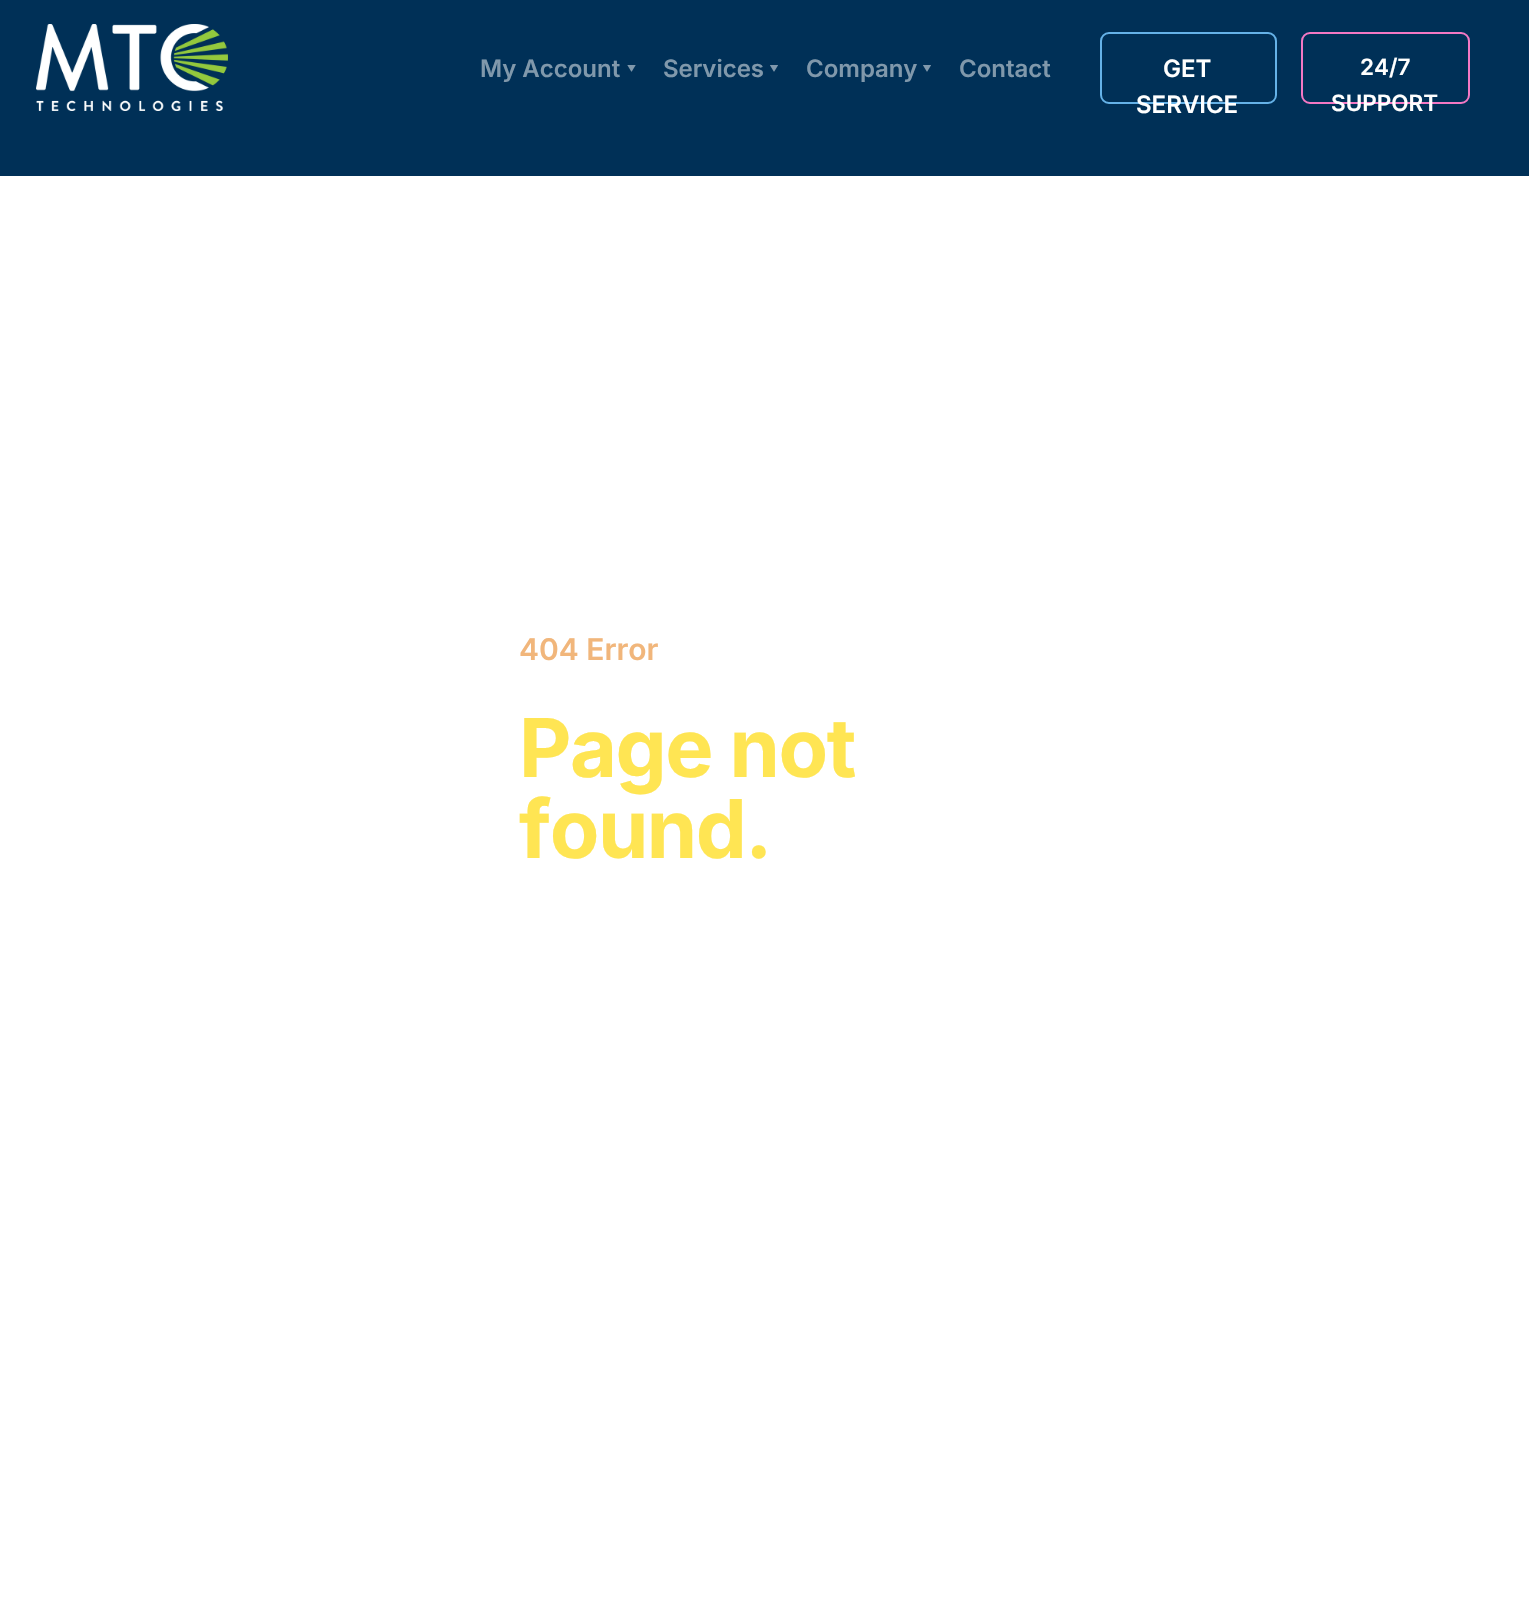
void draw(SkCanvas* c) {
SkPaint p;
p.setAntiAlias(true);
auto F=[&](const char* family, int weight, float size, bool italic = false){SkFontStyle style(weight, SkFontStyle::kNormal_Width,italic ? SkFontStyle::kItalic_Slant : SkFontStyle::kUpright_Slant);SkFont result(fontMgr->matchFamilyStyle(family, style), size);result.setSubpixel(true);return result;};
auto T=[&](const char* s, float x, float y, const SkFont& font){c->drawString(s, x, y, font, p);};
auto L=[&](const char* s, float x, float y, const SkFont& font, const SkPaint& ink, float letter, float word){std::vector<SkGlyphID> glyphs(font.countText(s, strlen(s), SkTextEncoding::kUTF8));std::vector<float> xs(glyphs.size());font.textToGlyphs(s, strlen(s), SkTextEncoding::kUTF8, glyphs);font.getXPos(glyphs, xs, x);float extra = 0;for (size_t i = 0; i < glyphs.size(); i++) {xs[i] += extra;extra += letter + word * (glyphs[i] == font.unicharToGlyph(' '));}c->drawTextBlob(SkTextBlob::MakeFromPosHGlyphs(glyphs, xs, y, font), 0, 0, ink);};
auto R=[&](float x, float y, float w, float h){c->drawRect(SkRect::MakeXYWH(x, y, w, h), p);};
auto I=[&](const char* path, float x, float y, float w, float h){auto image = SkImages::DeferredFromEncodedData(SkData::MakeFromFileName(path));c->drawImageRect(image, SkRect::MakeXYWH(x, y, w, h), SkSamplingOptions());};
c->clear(0xffffffff);
p.setColor(0xff003057);
R(0,0,1529,176);
I("1.png",36,24,192,87);
auto f1 = F("Inter",600,24);
p.setColor(0xff8098ab);
T("My Account",480,77,f1);
I("2.png",627,65,9,7);
T("Services",663,77,f1);
I("3.png",770,65,8,7);
T("Company",806,77,f1);
I("3.png",923,65,8,7);
T("Contact",959,77,f1);
p.setStroke(true);
p.setStrokeWidth(2);
p.setColor(0xff65b2e8);
c->drawRoundRect(SkRect::MakeXYWH(1101,33,175,70),8,8,p);
p.setStroke(false);
p.setColor(0xffffffff);
T("GET",1163,77,f1);
T("SERVICE",1136,113,f1);
p.setStroke(true);
p.setColor(0xfff478c4);
c->drawRoundRect(SkRect::MakeXYWH(1302,33,167,70),8,8,p);
auto f2 = F("Inter",600,22.5);
p.setStroke(false);
p.setColor(0xffffffff);
T("24/7",1360,75,f2);
T("SUPPORT",1331,111,f2);
auto f3 = F("Inter",600,30);
p.setColor(0xfff1b67b);
T("404 Error",519,660,f3);
auto f4 = F("Inter",700,81);
p.setColor(0xffffe553);
L("Page not",519,777,f4,p,-1.5,0);
L("found.",519,858,f4,p,-1.5,0);
}
